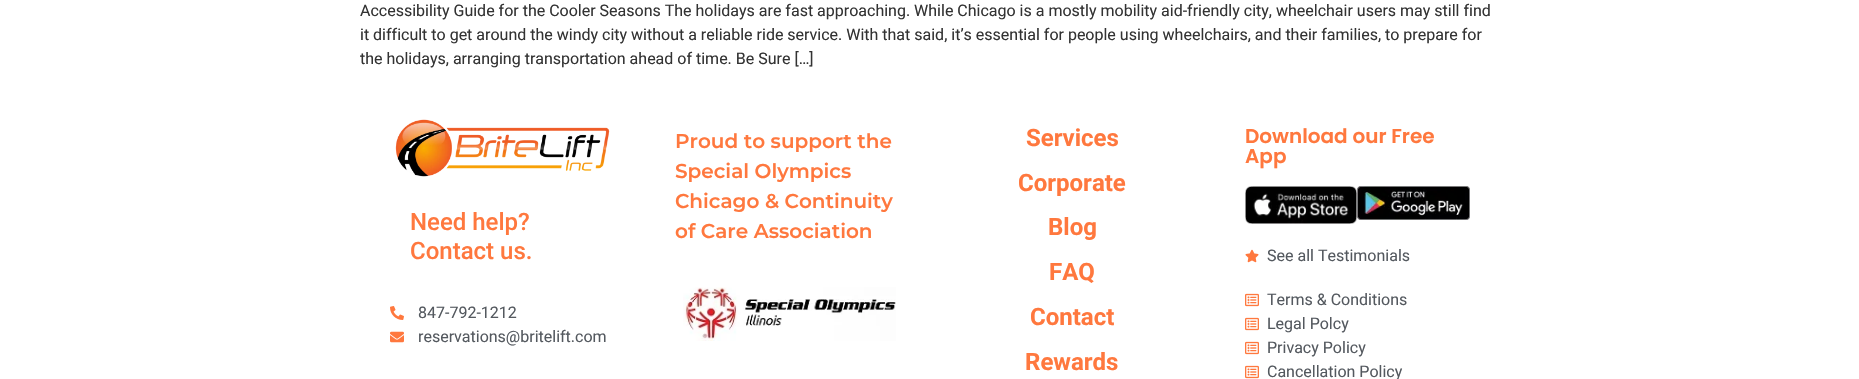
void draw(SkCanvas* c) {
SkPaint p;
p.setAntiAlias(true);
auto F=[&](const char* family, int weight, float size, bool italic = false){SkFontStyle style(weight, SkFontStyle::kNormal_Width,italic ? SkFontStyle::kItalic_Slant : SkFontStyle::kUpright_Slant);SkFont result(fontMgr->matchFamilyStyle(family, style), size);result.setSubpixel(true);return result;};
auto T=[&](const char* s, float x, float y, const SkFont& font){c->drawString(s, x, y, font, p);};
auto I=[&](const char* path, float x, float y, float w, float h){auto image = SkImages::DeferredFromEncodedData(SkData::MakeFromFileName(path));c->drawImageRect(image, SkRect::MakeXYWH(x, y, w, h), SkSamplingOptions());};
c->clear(0xffffffff);
auto f1 = F("Roboto",400,16);
p.setColor(0xff333333);
T("Accessibility Guide for the Cooler Seasons The holidays are fast approaching. While Chicago is a mostly mobility aid-friendly city, wheelchair users may still find",360,16,f1);
T("it difficult to get around the windy city without a reliable ride service. With that said, it’s essential for people using wheelchairs, and their families, to prepare for",360,40,f1);
T("the holidays, arranging transportation ahead of time. Be Sure […]",360,64,f1);
auto f2 = F("Montserrat",600,20);
p.setColor(0xffff783e);
T("Proud to support the",675,148,f2);
T("Special Olympics",675,178,f2);
T("Chicago & Continuity",675,208,f2);
T("of Care Association",675,238,f2);
I("1.png",683,287,213,54);
auto f3 = F("Roboto",700,24);
T("Services",1026,146,f3);
T("Corporate",1018,191,f3);
T("Blog",1048,235,f3);
T("FAQ",1049,280,f3);
T("Contact",1030,325,f3);
T("Rewards",1025,370,f3);
auto f4 = F("Poppins",600,20);
T("Download our Free",1245,143,f4);
T("App",1245,163,f4);
I("2.png",1245,186,112,38);
I("3.png",1357,186,113,34);
I("4.png",1245,249,14,14);
p.setColor(0xff54595f);
T("See all Testimonials",1267,261,f1);
I("5.png",1245,293,14,14);
T("Terms & Conditions",1267,305,f1);
I("5.png",1245,317,14,14);
T("Legal Polcy",1267,329,f1);
I("5.png",1245,341,14,14);
T("Privacy Policy",1267,353,f1);
I("5.png",1245,365,14,14);
T("Cancellation Policy",1267,377,f1);
I("6.png",395,119,215,58);
auto f5 = F("Roboto",500,24);
p.setColor(0xffff783e);
T("Need help?",410,230,f5);
T("Contact us.",410,259,f5);
I("7.png",390,306,14,14);
p.setColor(0xff54595f);
T("847-792-1212",418,318,f1);
I("8.png",390,331,14,12);
T("reservations@britelift.com",418,342,f1);
}
